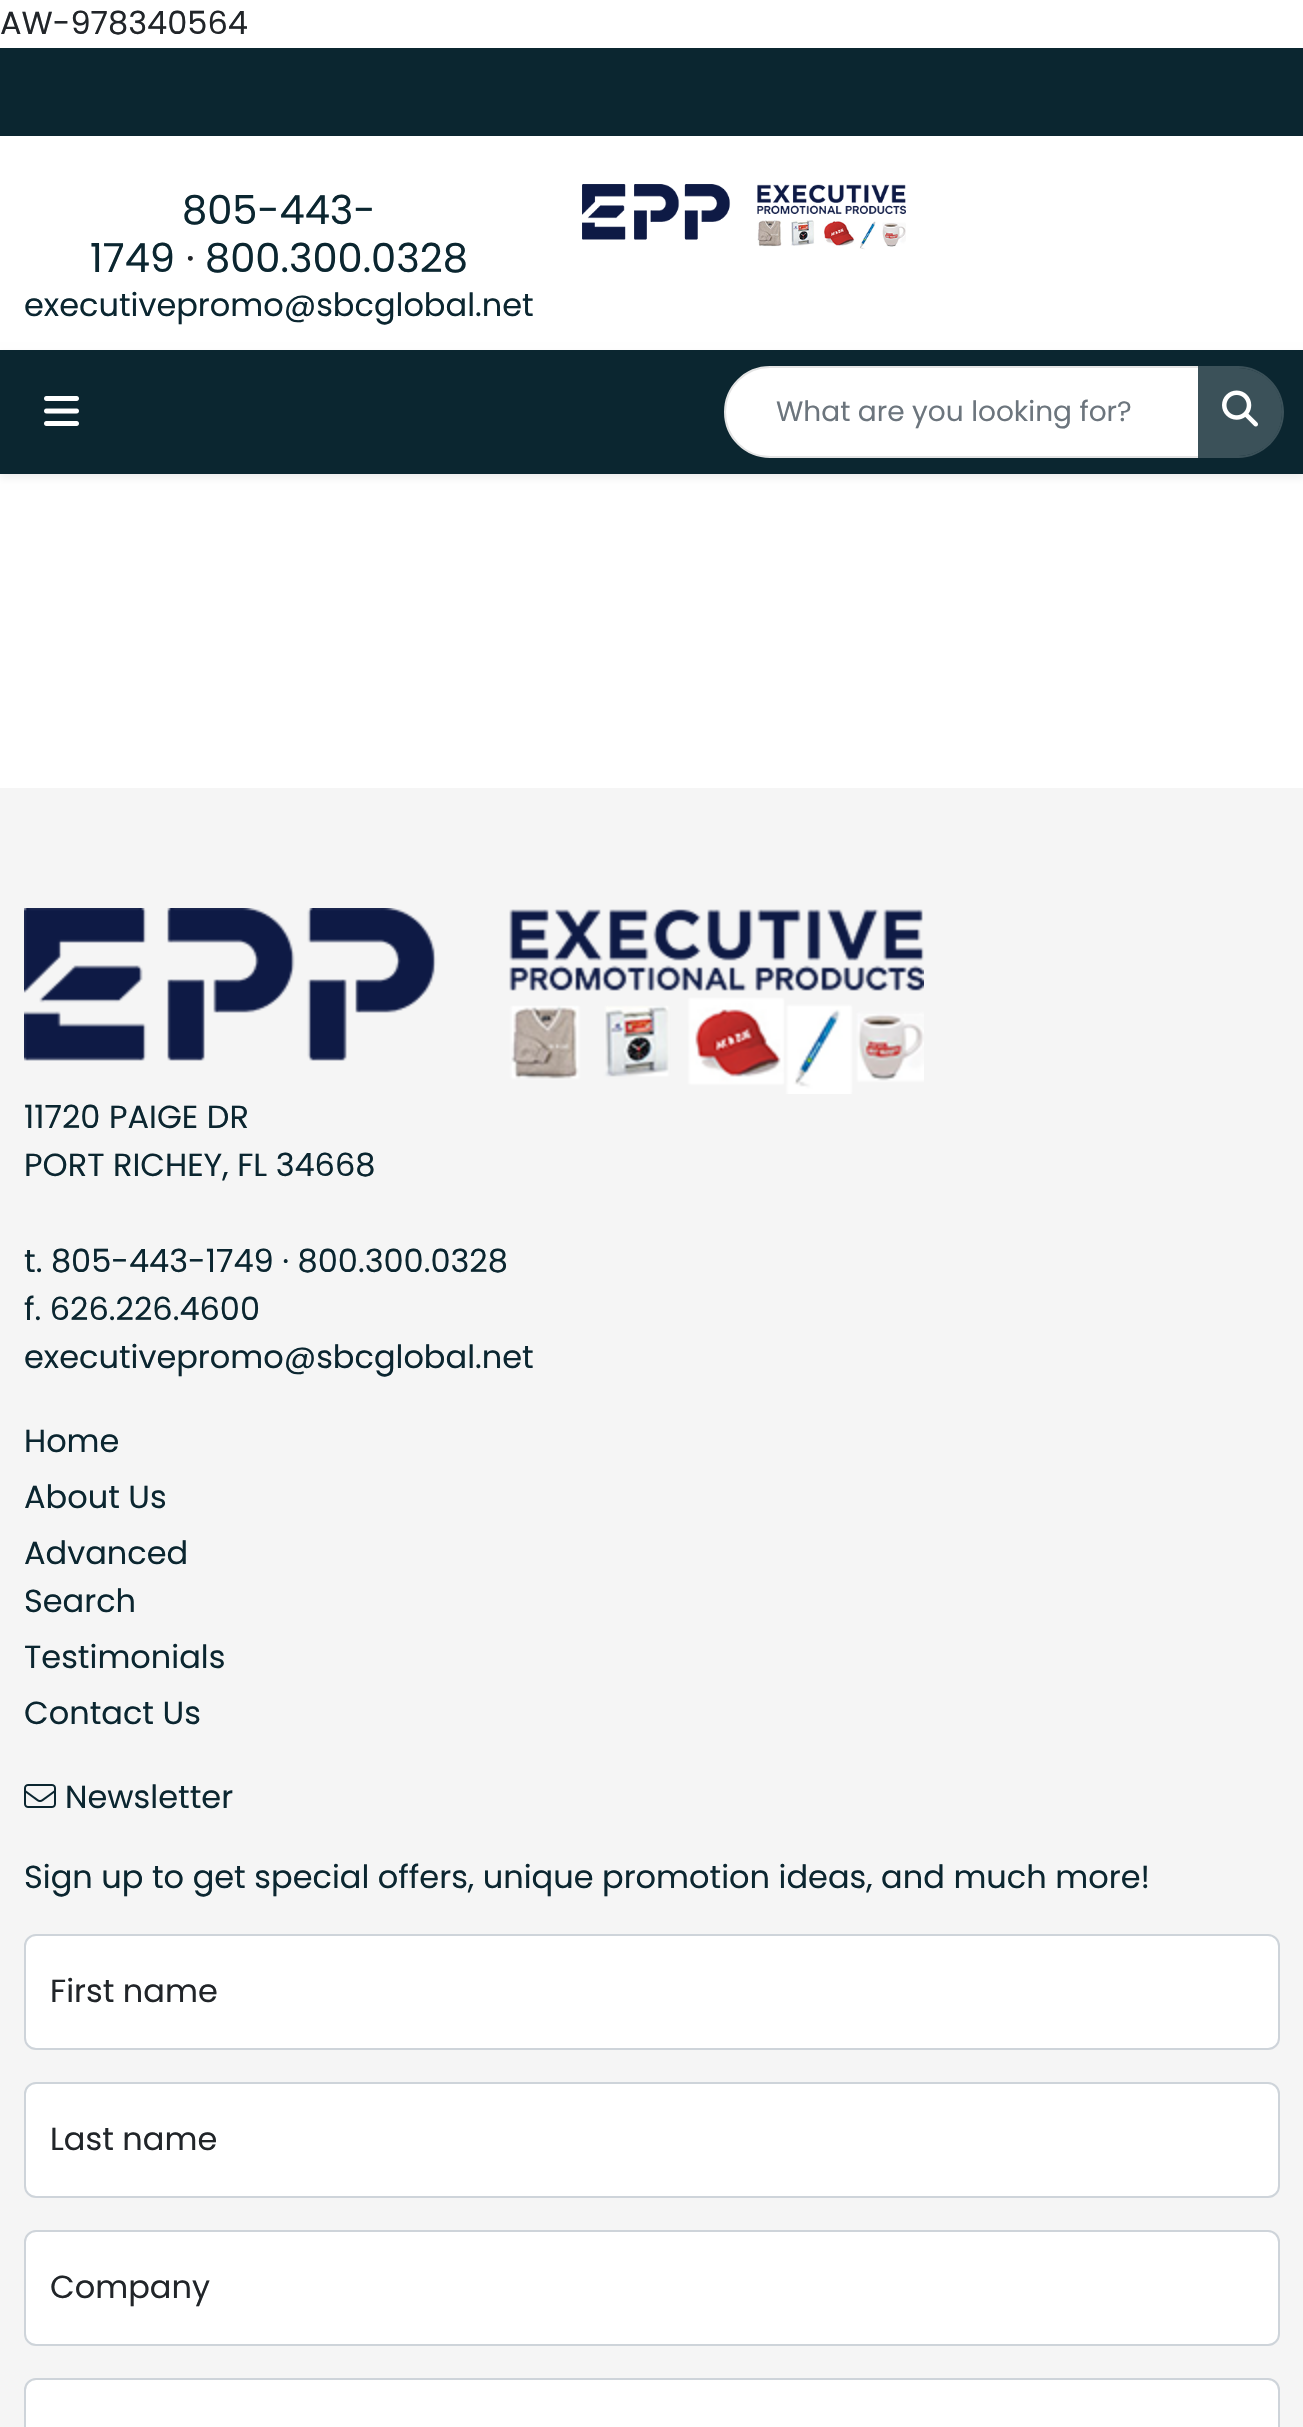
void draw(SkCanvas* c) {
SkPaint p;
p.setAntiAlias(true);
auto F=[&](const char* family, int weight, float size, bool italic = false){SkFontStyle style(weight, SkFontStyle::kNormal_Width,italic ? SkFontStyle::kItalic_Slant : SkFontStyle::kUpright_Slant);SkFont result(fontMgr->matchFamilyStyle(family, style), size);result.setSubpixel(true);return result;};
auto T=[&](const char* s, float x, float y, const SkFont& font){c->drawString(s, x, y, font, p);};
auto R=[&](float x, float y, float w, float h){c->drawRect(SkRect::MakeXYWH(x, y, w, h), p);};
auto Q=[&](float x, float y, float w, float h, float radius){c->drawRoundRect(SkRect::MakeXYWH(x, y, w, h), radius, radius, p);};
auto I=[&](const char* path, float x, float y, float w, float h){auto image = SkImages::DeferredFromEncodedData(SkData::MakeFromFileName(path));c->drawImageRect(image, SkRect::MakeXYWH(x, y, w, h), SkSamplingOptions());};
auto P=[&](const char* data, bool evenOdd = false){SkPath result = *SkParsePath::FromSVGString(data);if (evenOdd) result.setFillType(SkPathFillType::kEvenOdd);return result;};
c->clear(0xffffffff);
auto f1 = F("Poppins",400,32);
p.setColor(0xff212529);
T("AW-978340564",0,34,f1);
p.setColor(0xff0b2630);
R(0,48,1303,88);
auto f2 = F("Poppins",400,40);
T("805-443-",182,224,f2);
T("1749",90,272,f2);
p.setColor(0xff212529);
T("·",186,272,f2);
p.setColor(0xff0b2630);
T("800.300.0328",205,272,f2);
T("executivepromo@sbcglobal.net",24,316,f1);
I("1.png",582,184,324,66);
p.setColor(0x12000000);
p.setMaskFilter(SkMaskFilter::MakeBlur(kNormal_SkBlurStyle, 4));
c->drawRect(SkRect::MakeXYWH(0,354,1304,124),p);
p.setMaskFilter(nullptr);
p.setColor(0xff0b2630);
R(0,350,1303,124);
I("2.png",44,396,35,30);
p.setColor(0xffffffff);
c->drawPath(P("M770 367h429v90h-429c-25 0-45-20-45-45c0-25 20-45 45-45z"),p);
p.setStroke(true);
p.setStrokeWidth(2);
p.setColor(0xffe4e4e4);
c->drawPath(P("M770 367h429v90h-429c-25 0-45-20-45-45c0-25 20-45 45-45z"),p);
auto f3 = F("Poppins",400,28);
p.setStroke(false);
p.setColor(0xff6c757d);
T("What are you looking for?",776,421,f3);
p.setColor(0xff3b5159);
c->drawPath(P("M1198 368h40c24.5 0 44 19.5 44 44c0 24.5-19.5 44-44 44h-40z"),p);
c->drawPath(P("M1198 366h40c25 0 46 21 46 46c0 25-21 46-46 46h-40zm0 2h40c24 0 44 20 44 44c0 24-20 44-44 44h-40z",true),p);
I("3.png",1222,390,36,37);
p.setColor(0xfff5f5f5);
R(0,788,1303,1639);
I("4.png",24,908,900,186);
p.setColor(0xff0b2630);
T("11720 PAIGE DR",24,1128,f1);
T("PORT RICHEY, FL 34668",24,1176,f1);
T("t. 805-443-1749 · 800.300.0328",24,1272,f1);
T("f. 626.226.4600",24,1320,f1);
T("executivepromo@sbcglobal.net",24,1368,f1);
T("Home",24,1452,f1);
T("About Us",24,1508,f1);
T("Advanced",24,1564,f1);
T("Search",24,1612,f1);
T("Testimonials",24,1668,f1);
T("Contact Us",24,1724,f1);
I("5.png",24,1784,32,24);
T("Newsletter",65,1808,f1);
T("Sign up to get special offers, unique promotion ideas, and much more!",24,1888,f1);
p.setColor(0xffffffff);
c->drawRoundRect(SkRect::MakeXYWH(25,1935,1254,114),11,11,p);
p.setStroke(true);
p.setColor(0xffced4da);
c->drawRoundRect(SkRect::MakeXYWH(25,1935,1254,114),11,11,p);
p.setStroke(false);
p.setColor(0xff212529);
T("First name",50,2002,f1);
p.setColor(0xffffffff);
c->drawRoundRect(SkRect::MakeXYWH(25,2083,1254,114),11,11,p);
p.setStroke(true);
p.setColor(0xffced4da);
c->drawRoundRect(SkRect::MakeXYWH(25,2083,1254,114),11,11,p);
p.setStroke(false);
p.setColor(0xff212529);
T("Last name",50,2150,f1);
p.setColor(0xffffffff);
c->drawRoundRect(SkRect::MakeXYWH(25,2231,1254,114),11,11,p);
p.setStroke(true);
p.setColor(0xffced4da);
c->drawRoundRect(SkRect::MakeXYWH(25,2231,1254,114),11,11,p);
p.setStroke(false);
p.setColor(0xff212529);
T("Company",50,2298,f1);
p.setColor(0xffffffff);
Q(26,2380,1252,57,10);
p.setStroke(true);
p.setColor(0xffced4da);
c->drawRoundRect(SkRect::MakeXYWH(25,2379,1254,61),11,11,p);
}
